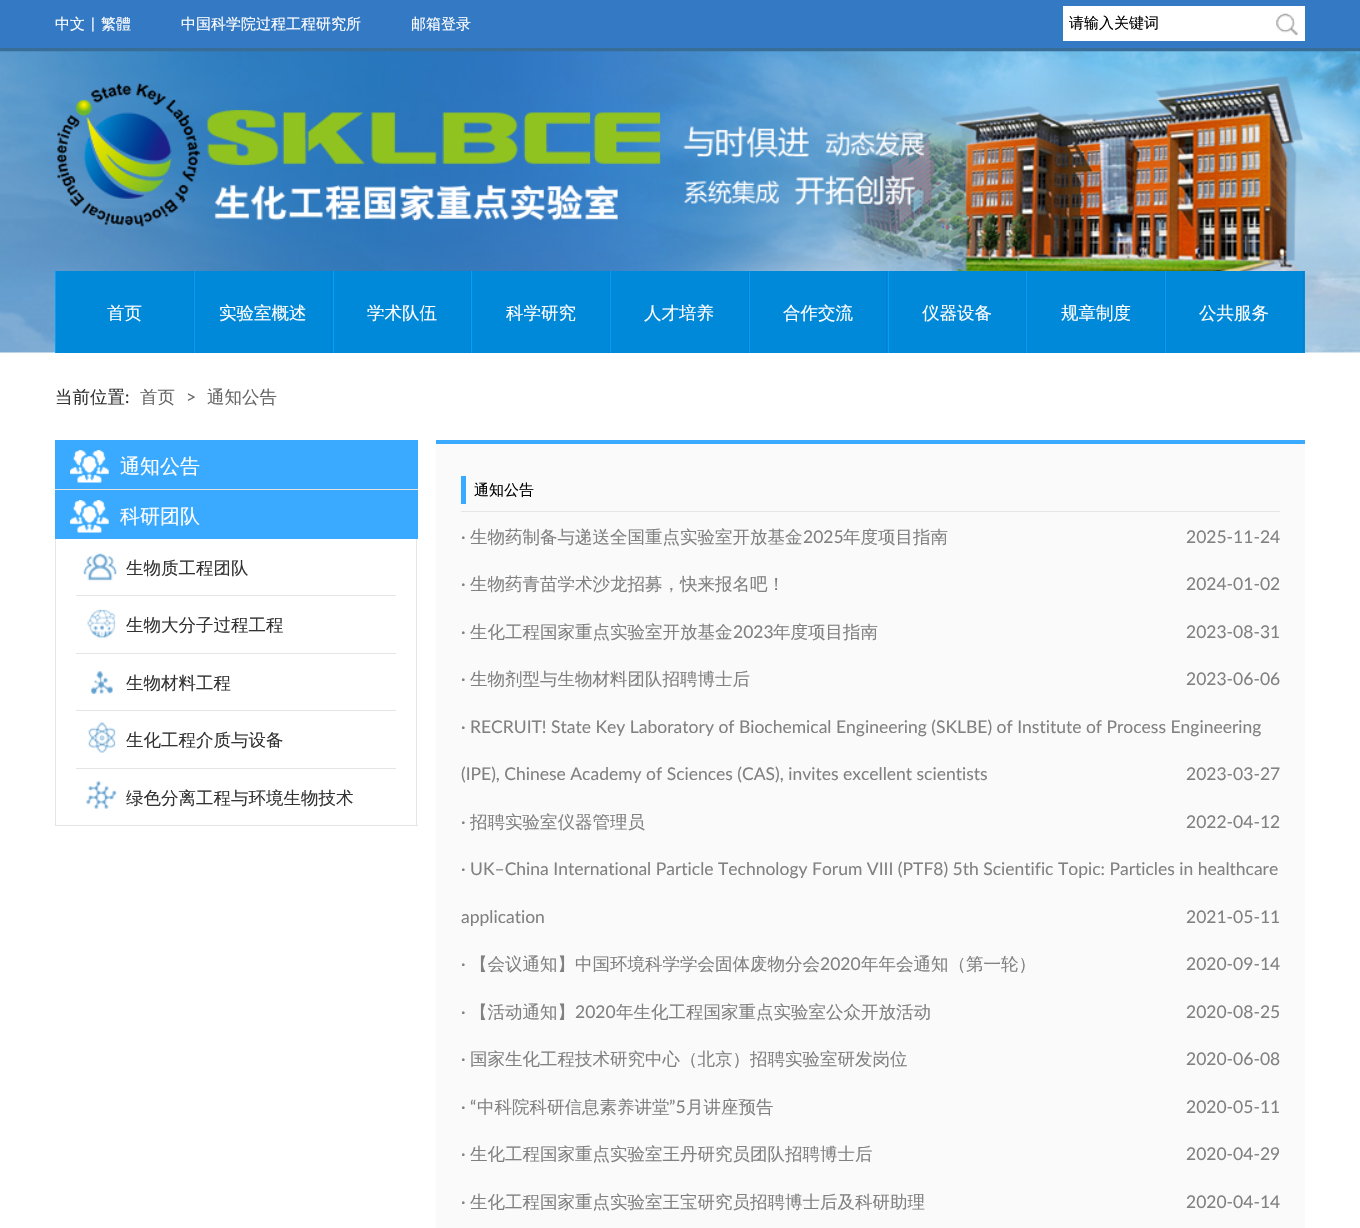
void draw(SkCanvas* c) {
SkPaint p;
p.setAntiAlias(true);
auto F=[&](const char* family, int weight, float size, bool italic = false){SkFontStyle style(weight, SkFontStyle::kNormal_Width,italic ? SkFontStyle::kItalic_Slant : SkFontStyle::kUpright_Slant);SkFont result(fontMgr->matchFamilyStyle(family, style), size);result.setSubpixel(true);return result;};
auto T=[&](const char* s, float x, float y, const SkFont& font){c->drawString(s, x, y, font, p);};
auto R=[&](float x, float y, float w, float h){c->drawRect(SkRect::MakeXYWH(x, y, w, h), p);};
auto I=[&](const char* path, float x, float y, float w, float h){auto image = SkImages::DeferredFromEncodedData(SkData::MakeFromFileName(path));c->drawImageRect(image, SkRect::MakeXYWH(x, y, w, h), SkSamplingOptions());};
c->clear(0xffffffff);
p.setColor(0xff3379c4);
R(0,0,1360,48);
p.setColor(0xff376d97);
R(0,48,1360,4);
auto f1 = F("WenQuanYi Zen Hei",500,15);
p.setColor(0xffffffff);
T("中文",55,29,f1);
auto f2 = F("Lato",400,15);
T("|",91,29,f2);
T("繁體",101,29,f1);
T("中国科学院过程工程研究所",181,29,f1);
T("邮箱登录",411,29,f1);
R(1063,6,242,35);
p.setColor(0xff000000);
T("请输入关键词",1069,28,f1);
I("1.png",1276,13,22,22);
I("2.png",0,51,1360,302);
I("3.png",57,76,1246,195);
p.setColor(0xff0088d9);
R(56,271,1249,82);
p.setColor(0xff0181cd);
R(193,271,1,82);
p.setColor(0xff00a0ff);
R(55,271,1,82);
auto f3 = F("WenQuanYi Zen Hei",500,17.5);
p.setColor(0xffffffff);
T("首页",107,319,f3);
p.setColor(0xff0181cd);
R(331,271,1,82);
p.setColor(0xff00a0ff);
R(194,271,1,82);
p.setColor(0xffffffff);
T("实验室概述",219,319,f3);
p.setColor(0xff0181cd);
R(470,271,1,82);
p.setColor(0xff00a0ff);
R(333,271,1,82);
p.setColor(0xffffffff);
T("学术队伍",367,319,f3);
p.setColor(0xff0181cd);
R(609,271,1,82);
p.setColor(0xff00a0ff);
R(471,271,1,82);
p.setColor(0xffffffff);
T("科学研究",506,319,f3);
p.setColor(0xff0181cd);
R(748,271,1,82);
p.setColor(0xff00a0ff);
R(610,271,1,82);
p.setColor(0xffffffff);
T("人才培养",644,319,f3);
p.setColor(0xff0181cd);
R(886,271,1,82);
p.setColor(0xff00a0ff);
R(749,271,1,82);
p.setColor(0xffffffff);
T("合作交流",783,319,f3);
p.setColor(0xff0181cd);
R(1025,271,1,82);
p.setColor(0xff00a0ff);
R(888,271,1,82);
p.setColor(0xffffffff);
T("仪器设备",922,319,f3);
p.setColor(0xff0181cd);
R(1164,271,1,82);
p.setColor(0xff00a0ff);
R(1026,271,1,82);
p.setColor(0xffffffff);
T("规章制度",1061,319,f3);
p.setColor(0xff0181cd);
R(1303,271,1,82);
p.setColor(0xff00a0ff);
R(1165,271,1,82);
p.setColor(0xffffffff);
T("公共服务",1199,319,f3);
p.setColor(0xff333333);
T("当前位置",55,403,f3);
auto f4 = F("Lato",400,17.5);
T(":",125,403,f4);
p.setColor(0xff666666);
T("首页",140,403,f3);
T(">",186,403,f4);
T("通知公告",207,403,f3);
p.setColor(0xff39aaff);
R(55,440,363,49);
I("4.png",70,450,39,33);
auto f5 = F("WenQuanYi Zen Hei",500,20);
p.setColor(0xffffffff);
T("通知公告",120,473,f5);
p.setColor(0xffe5e5e5);
R(55,489,363,1);
p.setColor(0xff39aaff);
R(55,490,363,49);
I("4.png",70,500,39,33);
p.setColor(0xffffffff);
T("科研团队",120,523,f5);
p.setColor(0xffe5e5e5);
R(416,539,1,287);
R(55,825,363,1);
R(55,539,1,287);
I("5.png",83,553,34,28);
R(76,595,320,1);
p.setColor(0xff333333);
T("生物质工程团队",126,574,f3);
I("6.png",87,609,29,29);
p.setColor(0xffe5e5e5);
R(76,653,320,1);
p.setColor(0xff333333);
T("生物大分子过程工程",126,631,f3);
I("7.png",91,671,22,23);
p.setColor(0xffe5e5e5);
R(76,710,320,1);
p.setColor(0xff333333);
T("生物材料工程",126,689,f3);
I("8.png",88,722,28,31);
p.setColor(0xffe5e5e5);
R(76,768,320,1);
p.setColor(0xff333333);
T("生化工程介质与设备",126,746,f3);
I("9.png",86,781,31,28);
T("绿色分离工程与环境生物技术",126,804,f3);
p.setColor(0xfffafafa);
R(436,444,869,784);
p.setColor(0xff39aaff);
R(436,440,869,4);
p.setColor(0xffe5e5e5);
R(461,511,819,1);
p.setColor(0xff39aaff);
R(461,476,5,28);
p.setColor(0xff000000);
T("通知公告",474,495,f1);
p.setColor(0xff818181);
T("·",461,543,f4);
T("生物药制备与递送全国重点实验室开放基金",470,543,f3);
T("2025",803,543,f4);
T("年度项目指南",843,543,f3);
T("2025-11-24",1186,543,f4);
T("·",461,590,f4);
T("生物药青苗学术沙龙招募，快来报名吧！",470,590,f3);
T("2024-01-02",1186,590,f4);
T("·",461,638,f4);
T("生化工程国家重点实验室开放基金",470,638,f3);
T("2023",733,638,f4);
T("年度项目指南",773,638,f3);
T("2023-08-31",1186,638,f4);
T("·",461,685,f4);
T("生物剂型与生物材料团队招聘博士后",470,685,f3);
T("2023-06-06",1186,685,f4);
T("· RECRUIT! State Key Laboratory of Biochemical Engineering (SKLBE) of Institute of Process Engineering",461,733,f4);
T("(IPE), Chinese Academy of Sciences (CAS), invites excellent scientists",461,780,f4);
T("2023-03-27",1186,780,f4);
T("·",461,828,f4);
T("招聘实验室仪器管理员",470,828,f3);
T("2022-04-12",1186,828,f4);
T("· UK–China International Particle Technology Forum VIII (PTF8) 5th Scientific Topic: Particles in healthcare",461,875,f4);
T("application",461,923,f4);
T("2021-05-11",1186,923,f4);
T("·",461,970,f4);
T("【会议通知】中国环境科学学会固体废物分会",470,970,f3);
T("2020",820,970,f4);
T("年年会通知（第一轮）",861,970,f3);
T("2020-09-14",1186,970,f4);
T("·",461,1018,f4);
T("【活动通知】",470,1018,f3);
T("2020",575,1018,f4);
T("年生化工程国家重点实验室公众开放活动",616,1018,f3);
T("2020-08-25",1186,1018,f4);
T("·",461,1065,f4);
T("国家生化工程技术研究中心（北京）招聘实验室研发岗位",470,1065,f3);
T("2020-06-08",1186,1065,f4);
T("· “",461,1113,f4);
T("中科院科研信息素养讲堂",477,1113,f3);
T("”5",669,1113,f4);
T("月讲座预告",686,1113,f3);
T("2020-05-11",1186,1113,f4);
T("·",461,1160,f4);
T("生化工程国家重点实验室王丹研究员团队招聘博士后",470,1160,f3);
T("2020-04-29",1186,1160,f4);
T("·",461,1208,f4);
T("生化工程国家重点实验室王宝研究员招聘博士后及科研助理",470,1208,f3);
T("2020-04-14",1186,1208,f4);
}
